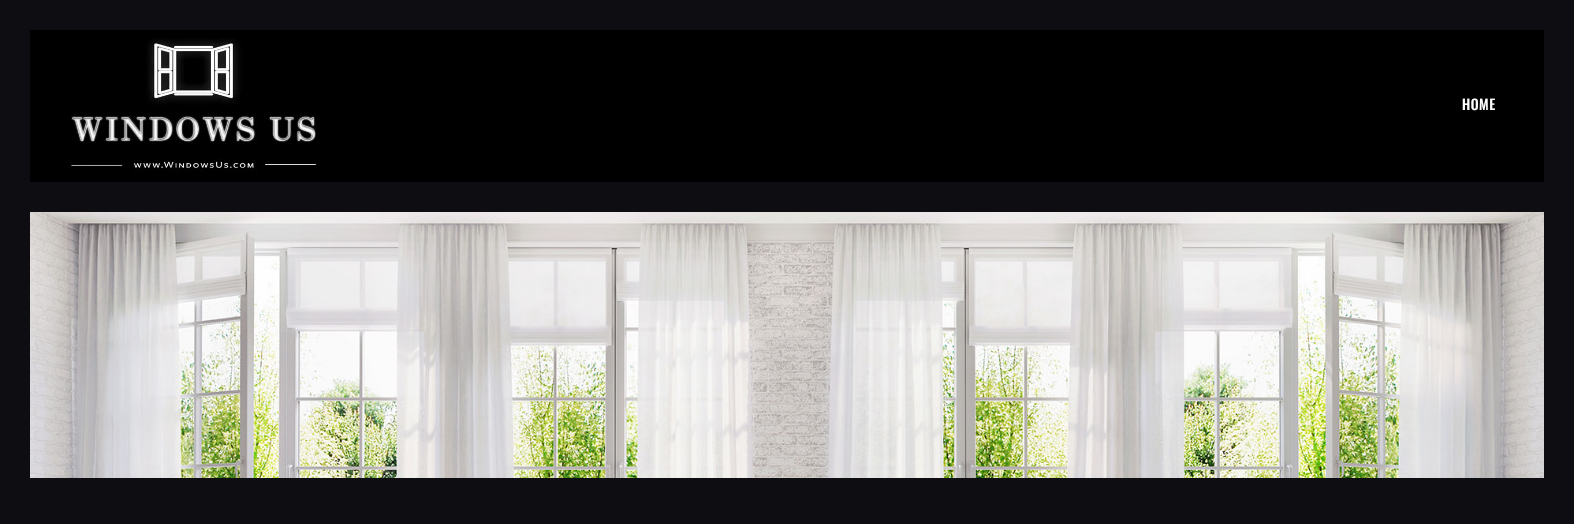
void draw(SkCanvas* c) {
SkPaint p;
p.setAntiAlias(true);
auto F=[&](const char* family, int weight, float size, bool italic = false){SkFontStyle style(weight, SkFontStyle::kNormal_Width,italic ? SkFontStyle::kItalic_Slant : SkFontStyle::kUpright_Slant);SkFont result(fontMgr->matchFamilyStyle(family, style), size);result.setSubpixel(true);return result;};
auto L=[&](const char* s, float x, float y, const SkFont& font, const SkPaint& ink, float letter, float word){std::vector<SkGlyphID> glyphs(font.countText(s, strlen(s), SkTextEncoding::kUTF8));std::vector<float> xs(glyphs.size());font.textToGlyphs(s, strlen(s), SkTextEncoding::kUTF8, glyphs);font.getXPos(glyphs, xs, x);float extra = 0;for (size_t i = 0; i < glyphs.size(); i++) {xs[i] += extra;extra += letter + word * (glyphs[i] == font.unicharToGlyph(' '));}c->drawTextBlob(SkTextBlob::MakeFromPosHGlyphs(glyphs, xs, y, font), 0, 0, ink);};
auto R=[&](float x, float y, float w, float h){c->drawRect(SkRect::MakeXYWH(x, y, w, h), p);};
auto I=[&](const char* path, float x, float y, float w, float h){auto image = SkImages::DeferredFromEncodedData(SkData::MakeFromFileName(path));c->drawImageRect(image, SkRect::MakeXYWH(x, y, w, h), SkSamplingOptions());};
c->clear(0xff0e0d12);
p.setColor(0xff000000);
R(30,30,1514,152);
I("1.png",70,38,247,133);
auto f1 = F("Oswald",500,14);
p.setColor(0xffffffff);
L("HOME",1462,110,f1,p,.5,0);
I("2.png",30,212,1514,266);
}
